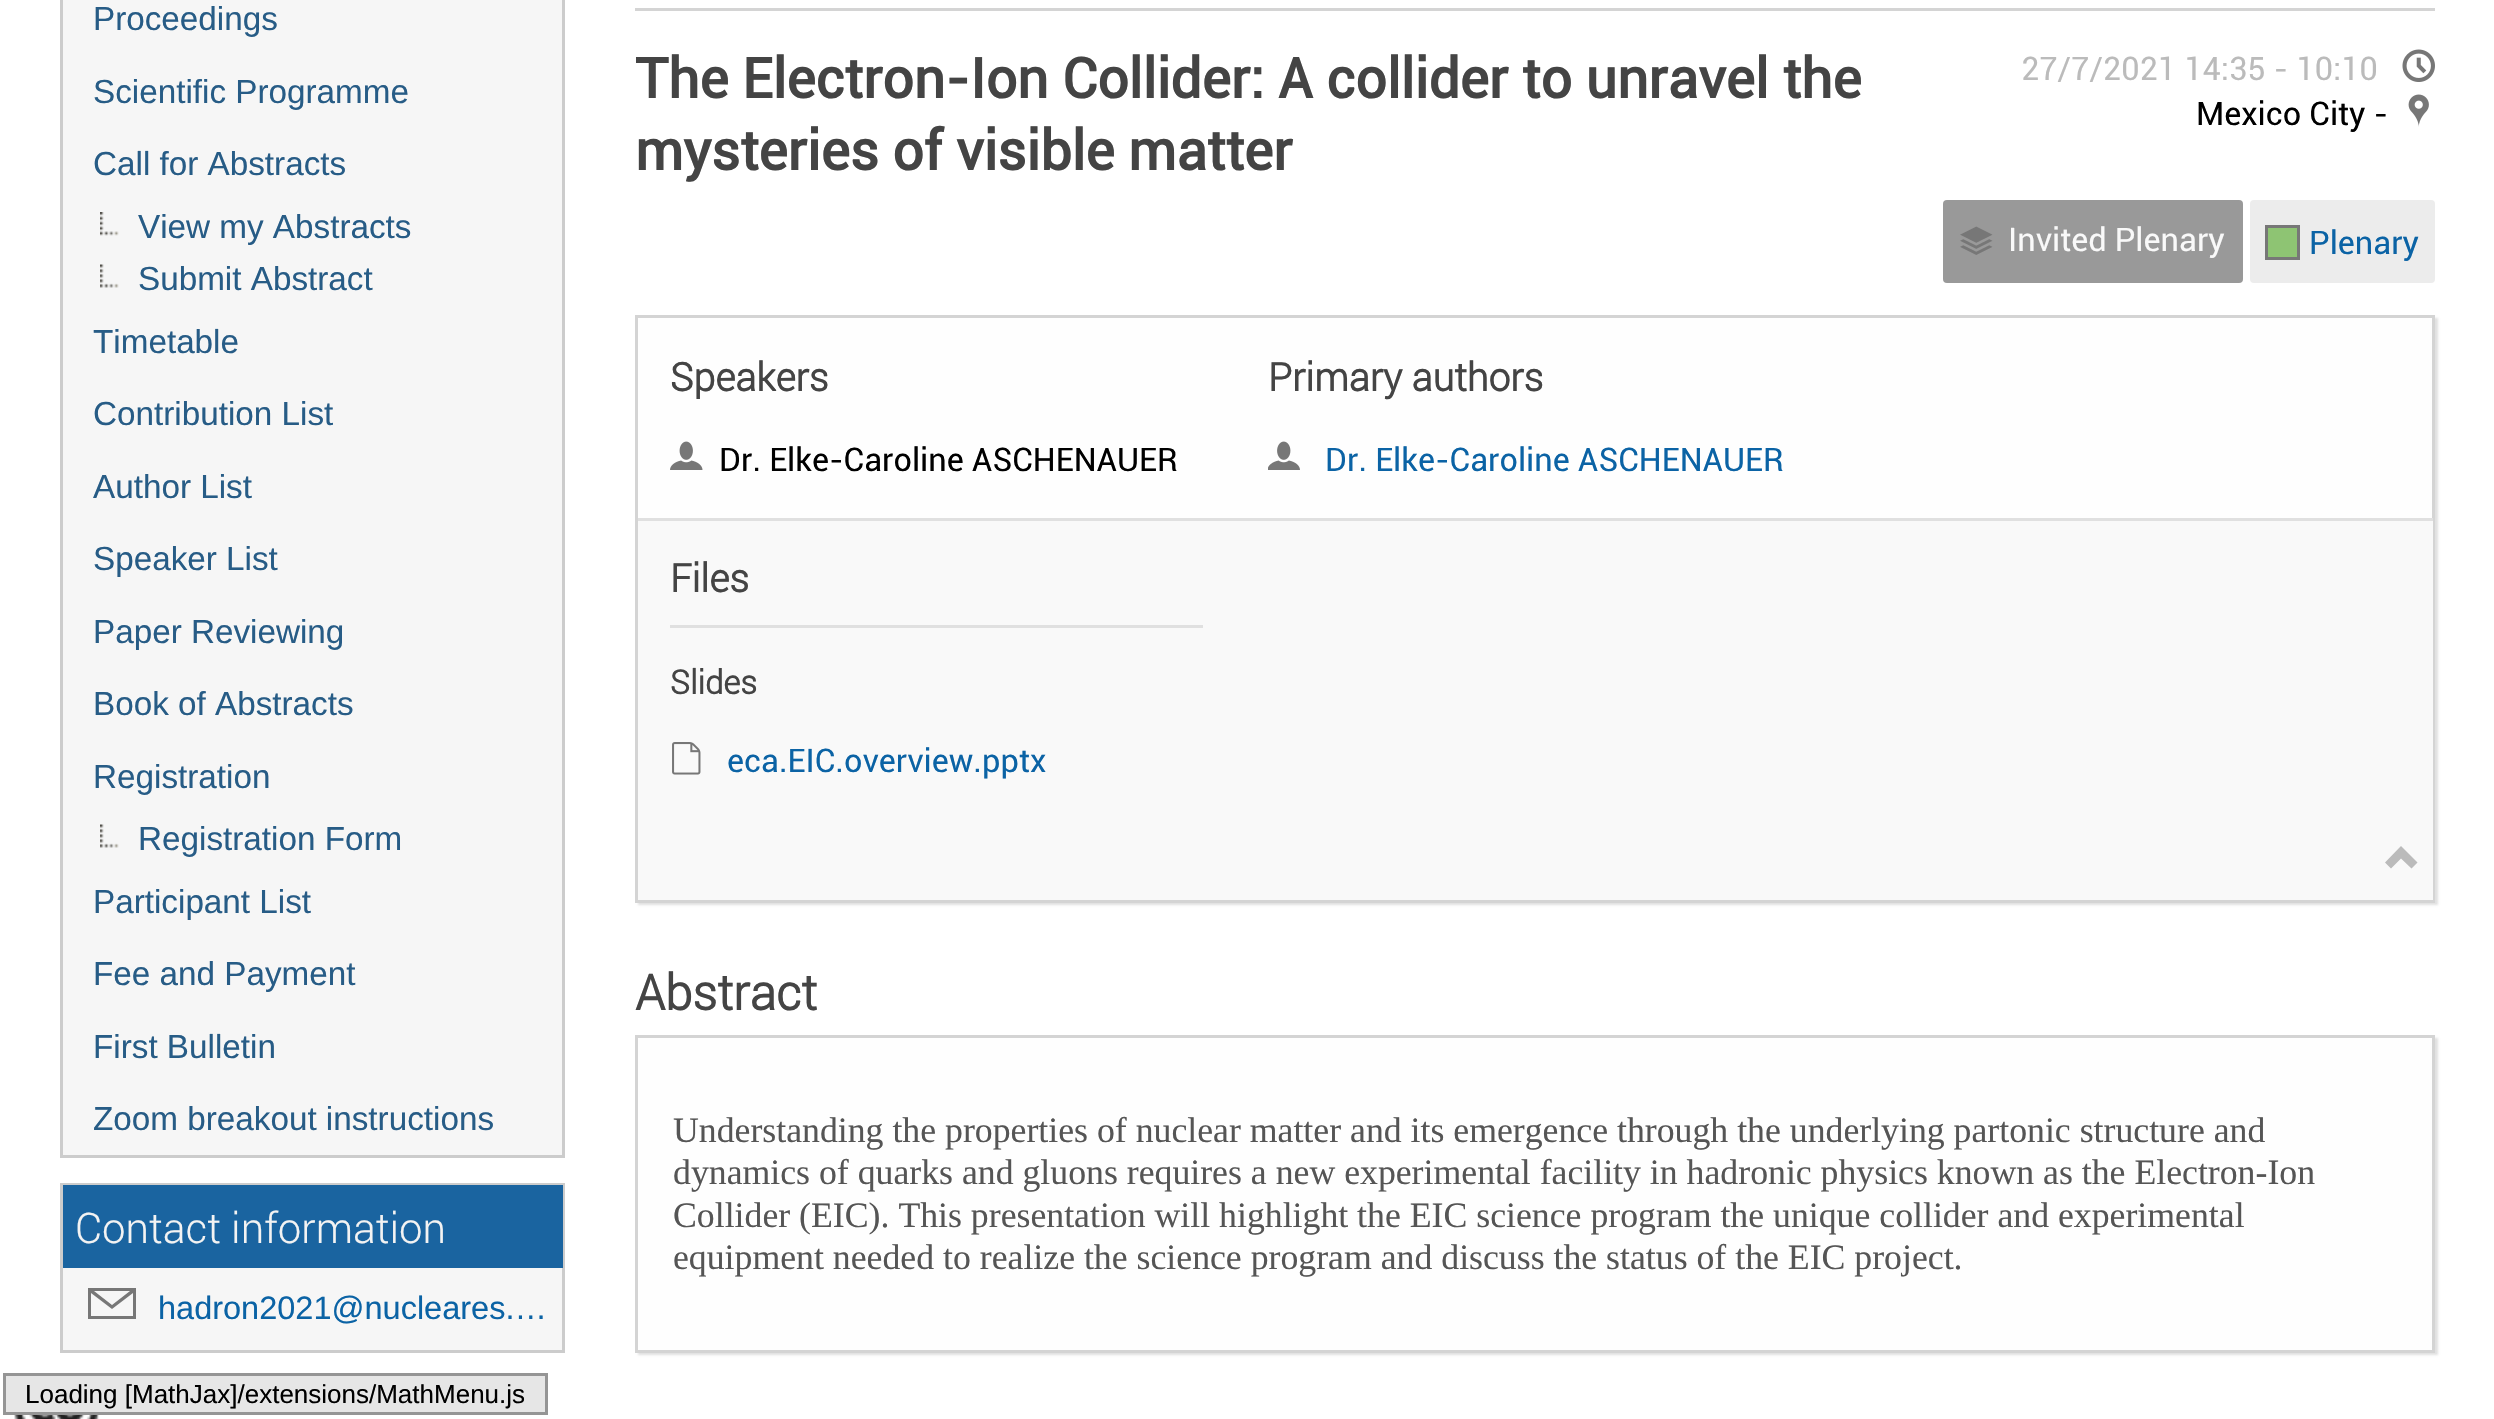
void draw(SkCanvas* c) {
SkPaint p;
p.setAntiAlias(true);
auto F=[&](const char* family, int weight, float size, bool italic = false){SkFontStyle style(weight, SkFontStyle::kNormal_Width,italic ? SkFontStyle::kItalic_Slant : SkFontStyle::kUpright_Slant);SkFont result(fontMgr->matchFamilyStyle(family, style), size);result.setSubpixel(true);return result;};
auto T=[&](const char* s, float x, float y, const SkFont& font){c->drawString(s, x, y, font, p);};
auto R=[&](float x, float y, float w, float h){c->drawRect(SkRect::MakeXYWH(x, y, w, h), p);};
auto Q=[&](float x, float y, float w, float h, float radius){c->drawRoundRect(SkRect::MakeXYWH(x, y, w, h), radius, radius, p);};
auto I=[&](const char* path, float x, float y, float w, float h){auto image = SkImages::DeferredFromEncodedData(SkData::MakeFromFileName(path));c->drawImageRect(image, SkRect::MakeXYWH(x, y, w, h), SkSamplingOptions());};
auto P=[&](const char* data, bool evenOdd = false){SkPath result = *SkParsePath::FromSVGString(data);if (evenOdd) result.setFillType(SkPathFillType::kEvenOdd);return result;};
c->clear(0xffffffff);
p.setColor(0xfff6f6f6);
c->drawRect(SkRect::MakeXYWH(61.5,-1.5,502,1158),p);
p.setStroke(true);
p.setStrokeWidth(3);
p.setColor(0xffcccccc);
c->drawRect(SkRect::MakeXYWH(61.5,-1.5,502,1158),p);
auto f1 = F("Liberation Sans",400,33.25);
p.setStroke(false);
p.setColor(0xff275c86);
T("Proceedings",93,30,f1);
T("Scientific Programme",93,103,f1);
T("Call for Abstracts",93,175,f1);
I("1.png",100,212,19,24);
T("View my Abstracts",138,238,f1);
I("2.png",100,264,19,24);
T("Submit Abstract",138,290,f1);
T("Timetable",93,353,f1);
T("Contribution List",93,425,f1);
T("Author List",93,498,f1);
T("Speaker List",93,570,f1);
T("Paper Reviewing",93,643,f1);
T("Book of Abstracts",93,715,f1);
T("Registration",93,788,f1);
I("2.png",100,824,19,24);
T("Registration Form",138,850,f1);
T("Participant List",93,913,f1);
T("Fee and Payment",93,985,f1);
T("First Bulletin",93,1058,f1);
T("Zoom breakout instructions",93,1130,f1);
p.setColor(0xfff6f6f6);
R(63,1268,499,82);
p.setStroke(true);
p.setColor(0xffcccccc);
c->drawRect(SkRect::MakeXYWH(61.5,1184.5,502,167),p);
p.setStroke(false);
p.setColor(0xff1a64a0);
R(63,1185,500,83);
auto f2 = F("Roboto",300,42.25);
p.setColor(0xfff3f3f3);
T("Contact information",75,1243,f2);
p.setColor(0xff777777);
c->drawPath(P("M88 1288v31h48v-31zm42 3l-18 14l-18-14zm-39 25v-23l21 16l21-16v23z"),p);
auto f3 = F("Liberation Sans",400,32.5);
p.setColor(0xff0b63a5);
T("hadron2021@nucleares.…",158,1319,f3);
p.setColor(0xffd4d4d4);
R(635,8,1800,3);
auto f4 = F("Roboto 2",700,55.25);
p.setColor(0xff444444);
T("The Electron-Ion Collider: A collider to unravel the",635,98,f4);
T("mysteries of visible matter",635,170,f4);
auto f5 = F("Roboto",400,32.5);
p.setColor(0xffbbbbbb);
T("27/7/2021 14:35 - 10:10",2021,80,f5);
I("3.png",2402,49,33,33);
p.setColor(0xff000000);
T("Mexico City -",2196,125,f5);
I("4.png",2408,94,21,33);
p.setColor(0xff999999);
Q(1943,200,300,83,4);
I("5.png",1960,226,33,29);
p.setColor(0xfff9f9f9);
T("Invited Plenary",2008,251,f5);
p.setColor(0xffececec);
Q(2250,200,185,83,4);
p.setColor(0xff8ec473);
c->drawRect(SkRect::MakeXYWH(2266.5,226.5,32,32),p);
p.setStroke(true);
p.setColor(0xff777777);
c->drawRect(SkRect::MakeXYWH(2266.5,226.5,32,32),p);
p.setStroke(false);
p.setColor(0xff0b63a5);
T("Plenary",2309,254,f5);
p.setColor(0xffe1e1e1);
p.setMaskFilter(SkMaskFilter::MakeBlur(kNormal_SkBlurStyle, 1));
c->drawRect(SkRect::MakeXYWH(638,318,1800,587),p);
p.setMaskFilter(nullptr);
p.setColor(0xfffefefe);
R(638,318,1794,200);
p.setStroke(true);
p.setColor(0xffd4d4d4);
c->drawRect(SkRect::MakeXYWH(636.5,316.5,1797,585),p);
auto f6 = F("Roboto",700,39);
p.setStroke(false);
p.setColor(0xff444444);
T("Speakers",670,391,f6);
I("6.png",670,441,33,29);
p.setColor(0xff000000);
T("Dr. Elke-Caroline ASCHENAUER",719,471,f5);
p.setColor(0xff444444);
T("Primary authors",1268,391,f6);
I("7.png",1268,441,32,29);
p.setColor(0xff0b63a5);
T("Dr. Elke-Caroline ASCHENAUER",1325,471,f5);
p.setColor(0xfff9f9f9);
R(638,521,1795,379);
p.setColor(0xffe0e0e0);
R(638,518,1795,3);
R(670,625,533,3);
p.setColor(0xff444444);
T("Files",670,592,f6);
auto f7 = F("Roboto",700,33);
T("Slides",670,694,f7);
I("8.png",672,742,29,33);
p.setColor(0xff0b63a5);
T("eca.EIC.overview.pptx",727,772,f5);
p.setColor(0xffbbbbbb);
c->drawPath(P("M2385 862.5l6 6l10-10l10.5 10l6-6l-16.5-16.5z"),p);
auto f8 = F("Roboto",700,49);
p.setColor(0xff444444);
T("Abstract",635,1010,f8);
p.setColor(0xffe1e1e1);
p.setMaskFilter(SkMaskFilter::MakeBlur(kNormal_SkBlurStyle, 1));
c->drawRect(SkRect::MakeXYWH(638,1038,1800,317),p);
p.setMaskFilter(nullptr);
p.setColor(0xfffefefe);
c->drawRect(SkRect::MakeXYWH(636.5,1036.5,1797,315),p);
p.setStroke(true);
p.setColor(0xffd4d4d4);
c->drawRect(SkRect::MakeXYWH(636.5,1036.5,1797,315),p);
auto f9 = F("Liberation Serif",400,35.75);
p.setStroke(false);
p.setColor(0xff555555);
T("Understanding the properties of nuclear matter and its emergence through the underlying partonic structure and",673,1142,f9);
T("dynamics of quarks and gluons requires a new experimental facility in hadronic physics known as the Electron-Ion",673,1184,f9);
T("Collider (EIC). This presentation will highlight the EIC science program the unique collider and experimental",673,1227,f9);
T("equipment needed to realize the science program and discuss the status of the EIC project.",673,1269,f9);
I("9.png",14,1415,85,4);
p.setColor(0xffe6e6e6);
c->drawRect(SkRect::MakeXYWH(4.5,1374.5,542,39),p);
p.setStroke(true);
p.setColor(0xff959595);
c->drawRect(SkRect::MakeXYWH(4.5,1374.5,542,39),p);
auto f10 = F("Liberation Sans",400,26);
p.setStroke(false);
p.setColor(0xff000000);
T("Loading [MathJax]/extensions/MathMenu.js",25,1403,f10);
}
